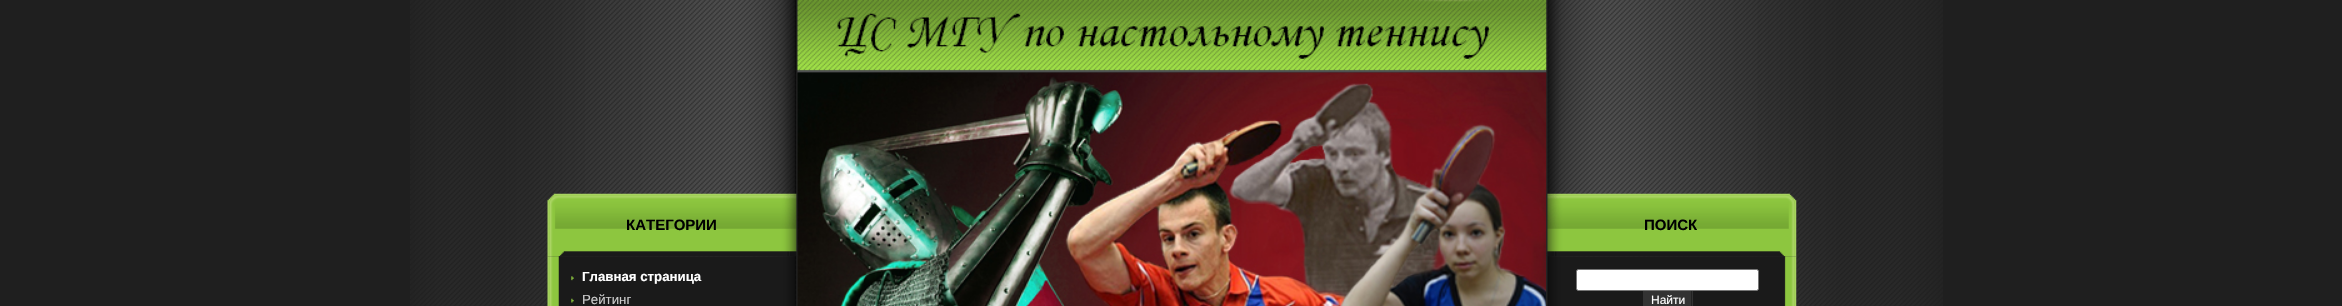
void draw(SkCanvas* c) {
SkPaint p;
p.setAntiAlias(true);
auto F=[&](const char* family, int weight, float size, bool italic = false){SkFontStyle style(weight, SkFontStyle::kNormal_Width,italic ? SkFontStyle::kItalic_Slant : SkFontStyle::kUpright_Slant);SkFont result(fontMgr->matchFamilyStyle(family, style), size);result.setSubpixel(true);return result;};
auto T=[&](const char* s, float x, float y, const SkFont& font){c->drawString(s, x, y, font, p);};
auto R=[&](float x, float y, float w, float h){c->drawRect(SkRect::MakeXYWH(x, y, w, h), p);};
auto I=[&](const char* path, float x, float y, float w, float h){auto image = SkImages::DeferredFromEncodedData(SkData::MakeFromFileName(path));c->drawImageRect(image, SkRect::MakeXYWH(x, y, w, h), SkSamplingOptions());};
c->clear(0xff1f1f1f);
I("1.png",410,0,1533,306);
I("2.png",547,193,250,64);
auto f1 = F("Liberation Sans",700,15);
p.setColor(0xff000000);
T("КАТЕГОРИИ",626,230,f1);
I("3.png",547,256,248,50);
I("4.png",571,276,3,5);
auto f2 = F("Liberation Sans",700,13.25);
p.setColor(0xffffffff);
T("Главная страница",582,281,f2);
I("5.png",571,298,3,5);
auto f3 = F("Liberation Sans",400,13.25);
p.setColor(0xffcccccc);
T("Рейтинг",582,304,f3);
I("6.png",797,0,750,73);
I("7.png",797,72,750,234);
I("8.png",1546,193,251,64);
p.setColor(0xff000000);
T("ПОИСК",1644,230,f1);
I("9.png",1546,256,251,50);
p.setColor(0xffffffff);
c->drawRoundRect(SkRect::MakeXYWH(1576.5,269.5,182,21),2,2,p);
p.setStroke(true);
p.setStrokeWidth(1);
p.setColor(0xff767676);
c->drawRoundRect(SkRect::MakeXYWH(1576.5,269.5,182,21),2,2,p);
p.setStroke(false);
p.setColor(0xff333333);
R(1643,291,50,15);
p.setColor(0xff222222);
R(1691,291,1,15);
auto f4 = F("Liberation Sans",400,12);
p.setColor(0xffffffff);
T("Найти",1651,304,f4);
}
